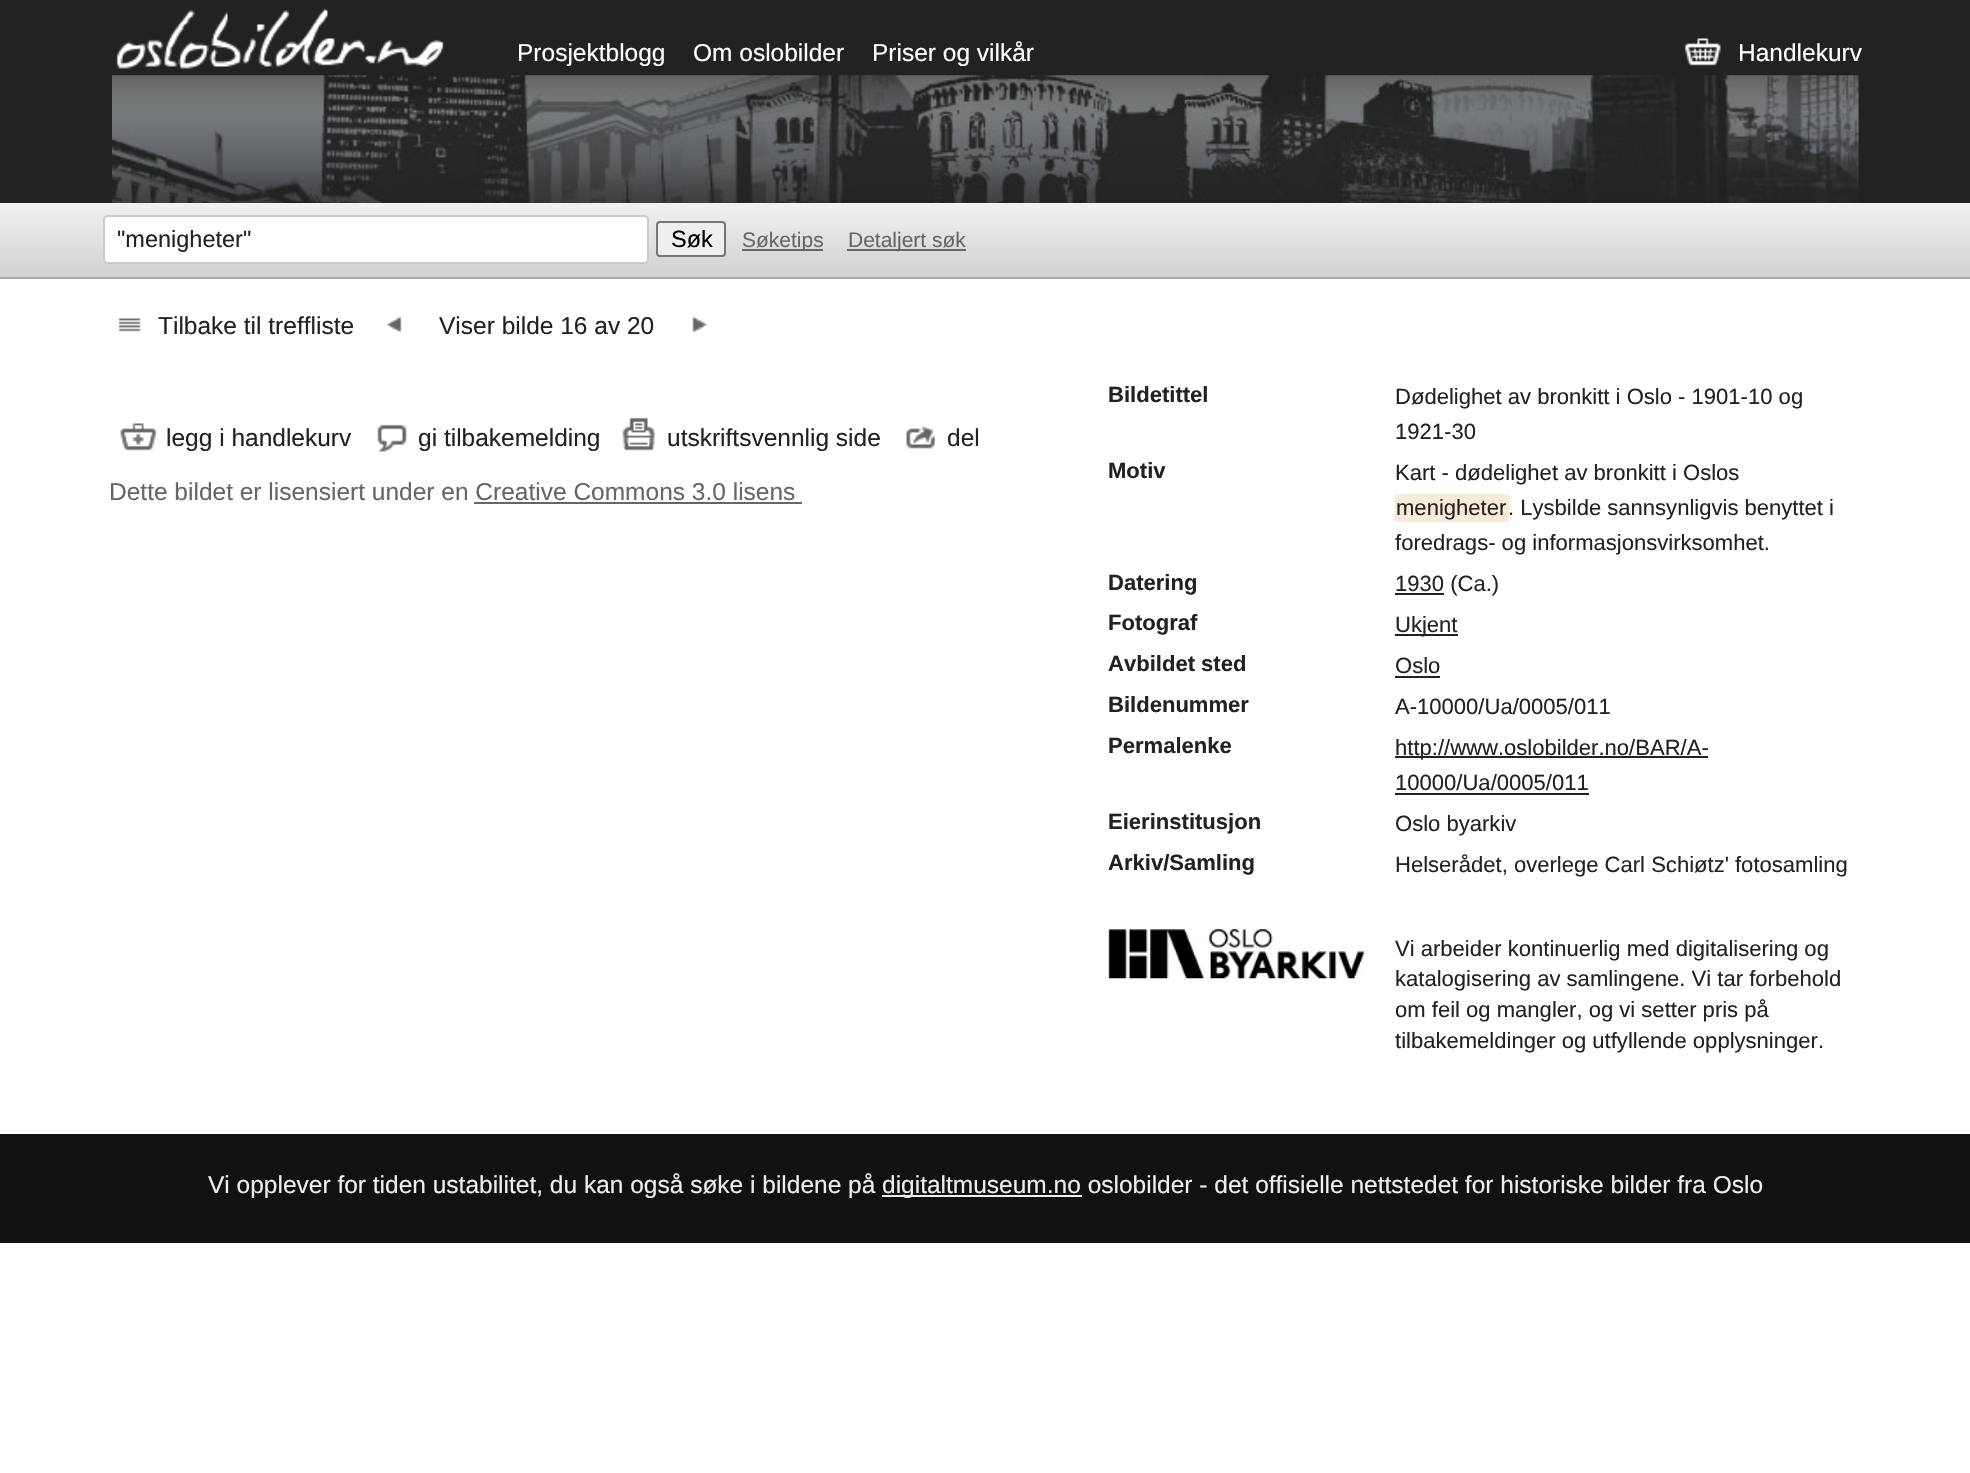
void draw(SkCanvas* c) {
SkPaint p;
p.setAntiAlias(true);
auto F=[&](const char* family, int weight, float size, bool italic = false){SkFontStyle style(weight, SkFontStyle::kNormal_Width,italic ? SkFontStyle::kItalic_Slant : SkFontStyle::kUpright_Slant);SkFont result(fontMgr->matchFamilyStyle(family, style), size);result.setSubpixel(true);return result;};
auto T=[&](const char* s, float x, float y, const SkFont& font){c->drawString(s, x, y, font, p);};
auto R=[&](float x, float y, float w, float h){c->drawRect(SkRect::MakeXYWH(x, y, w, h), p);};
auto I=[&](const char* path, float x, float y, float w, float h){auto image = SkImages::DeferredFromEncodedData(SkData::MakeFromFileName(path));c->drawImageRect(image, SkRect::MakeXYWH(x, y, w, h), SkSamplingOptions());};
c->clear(0xffffffff);
p.setColor(0xff222222);
R(0,0,1970,203);
I("1.png",112,75,1747,128);
I("2.png",116,8,329,61);
auto f1 = F("Liberation Sans",400,24.5);
p.setColor(0xffffffff);
T("Prosjektblogg",517,61,f1);
T("Om oslobilder",693,61,f1);
T("Priser og vilkår",872,61,f1);
I("3.png",1684,38,37,28);
T("Handlekurv",1738,61,f1);
{
const SkColor colors[] = {0xfff1f1f1,0xffd1d1d1};
const float stops[] = {0,1};
const SkPoint ends[] = {{985,203}, {985,277}};
p.setShader(SkGradientShader::MakeLinear(ends, colors, stops, 2, SkTileMode::kClamp));
p.setAlpha(255);
}
R(0,203,1970,74);
p.setShader(nullptr);
p.setColor(0xffaaaaaa);
R(0,277,1970,2);
p.setColor(0xffffffff);
c->drawRoundRect(SkRect::MakeXYWH(104,216,544,47),4,4,p);
p.setStroke(true);
p.setStrokeWidth(2);
p.setColor(0xffcccccc);
c->drawRoundRect(SkRect::MakeXYWH(104,216,544,47),4,4,p);
auto f2 = F("Liberation Sans",400,23.5);
p.setStroke(false);
p.setColor(0xff222222);
T("\"menigheter\"",117,247,f2);
p.setColor(0xffefefef);
c->drawRoundRect(SkRect::MakeXYWH(657,222,68,34),3,3,p);
p.setStroke(true);
p.setColor(0xff767676);
c->drawRoundRect(SkRect::MakeXYWH(657,222,68,34),3,3,p);
p.setStroke(false);
p.setColor(0xff000000);
T("Søk",671,247,f2);
p.setColor(0xff666666);
R(742,249,81,2);
auto f3 = F("Liberation Sans",400,21);
T("Søketips",742,247,f3);
R(847,249,119,2);
T("Detaljert søk",848,247,f3);
I("4.png",118,318,23,14);
p.setColor(0xff222222);
T("Tilbake til treffliste",158,334,f1);
I("5.png",386,316,16,17);
T("Viser bilde 16 av 20",439,334,f1);
I("6.png",692,316,16,17);
I("7.png",120,423,37,28);
T("legg i handlekurv",166,446,f1);
I("8.png",377,424,30,28);
T("gi tilbakemelding",418,446,f1);
I("9.png",622,417,33,34);
T("utskriftsvennlig side",667,446,f1);
I("10.png",906,426,29,23);
T("del",947,446,f1);
p.setColor(0xff666666);
T("Dette bildet er lisensiert under en Creative Commons 3.0 lisens",109,500,f1);
R(474,502,328,2);
auto f4 = F("Liberation Sans",700,22.05);
p.setColor(0xff222222);
T("Bildetittel",1108,402,f4);
auto f5 = F("Liberation Sans",400,22.05);
T("Dødelighet av bronkitt i Oslo - 1901-10 og",1395,404,f5);
T("1921-30",1395,439,f5);
T("Motiv",1108,478,f4);
T("Kart - dødelighet av bronkitt i Oslos",1395,480,f5);
p.setColor(0xfffaebd7);
R(1395,494,114,28);
p.setColor(0xff222222);
T("menigheter",1396,515,f5);
T(". Lysbilde sannsynligvis benyttet i",1508,515,f5);
T("foredrags- og informasjonsvirksomhet.",1395,550,f5);
T("Datering",1108,590,f4);
R(1395,593,49,2);
T("1930 (Ca.)",1395,591,f5);
T("Fotograf",1108,630,f4);
R(1395,634,63,2);
T("Ukjent",1395,632,f5);
T("Avbildet sted",1108,671,f4);
T("Oslo",1395,673,f5);
R(1395,676,45,2);
T("Bildenummer",1108,712,f4);
T("A-10000/Ua/0005/011",1395,714,f5);
T("Permalenke",1108,753,f4);
R(1395,756,313,2);
T("http://www.oslobilder.no/BAR/A-",1395,755,f5);
T("10000/Ua/0005/011",1395,790,f5);
R(1395,793,194,2);
T("Eierinstitusjon",1108,829,f4);
T("Oslo byarkiv",1395,831,f5);
T("Arkiv/Samling",1108,870,f4);
T("Helserådet, overlege Carl Schiøtz' fotosamling",1395,872,f5);
I("11.png",1107,929,258,50);
T("Vi arbeider kontinuerlig med digitalisering og",1395,956,f5);
T("katalogisering av samlingene. Vi tar forbehold",1395,986,f5);
T("om feil og mangler, og vi setter pris på",1395,1017,f5);
T("tilbakemeldinger og utfyllende opplysninger.",1395,1048,f5);
p.setColor(0xff111111);
R(0,1134,1970,109);
p.setColor(0xffeeeeee);
T("Vi opplever for tiden ustabilitet, du kan også søke i bildene på",208,1193,f1);
R(882,1195,200,2);
T("digitaltmuseum.no oslobilder - det offisielle nettstedet for historiske bilder fra Oslo",882,1193,f1);
}
